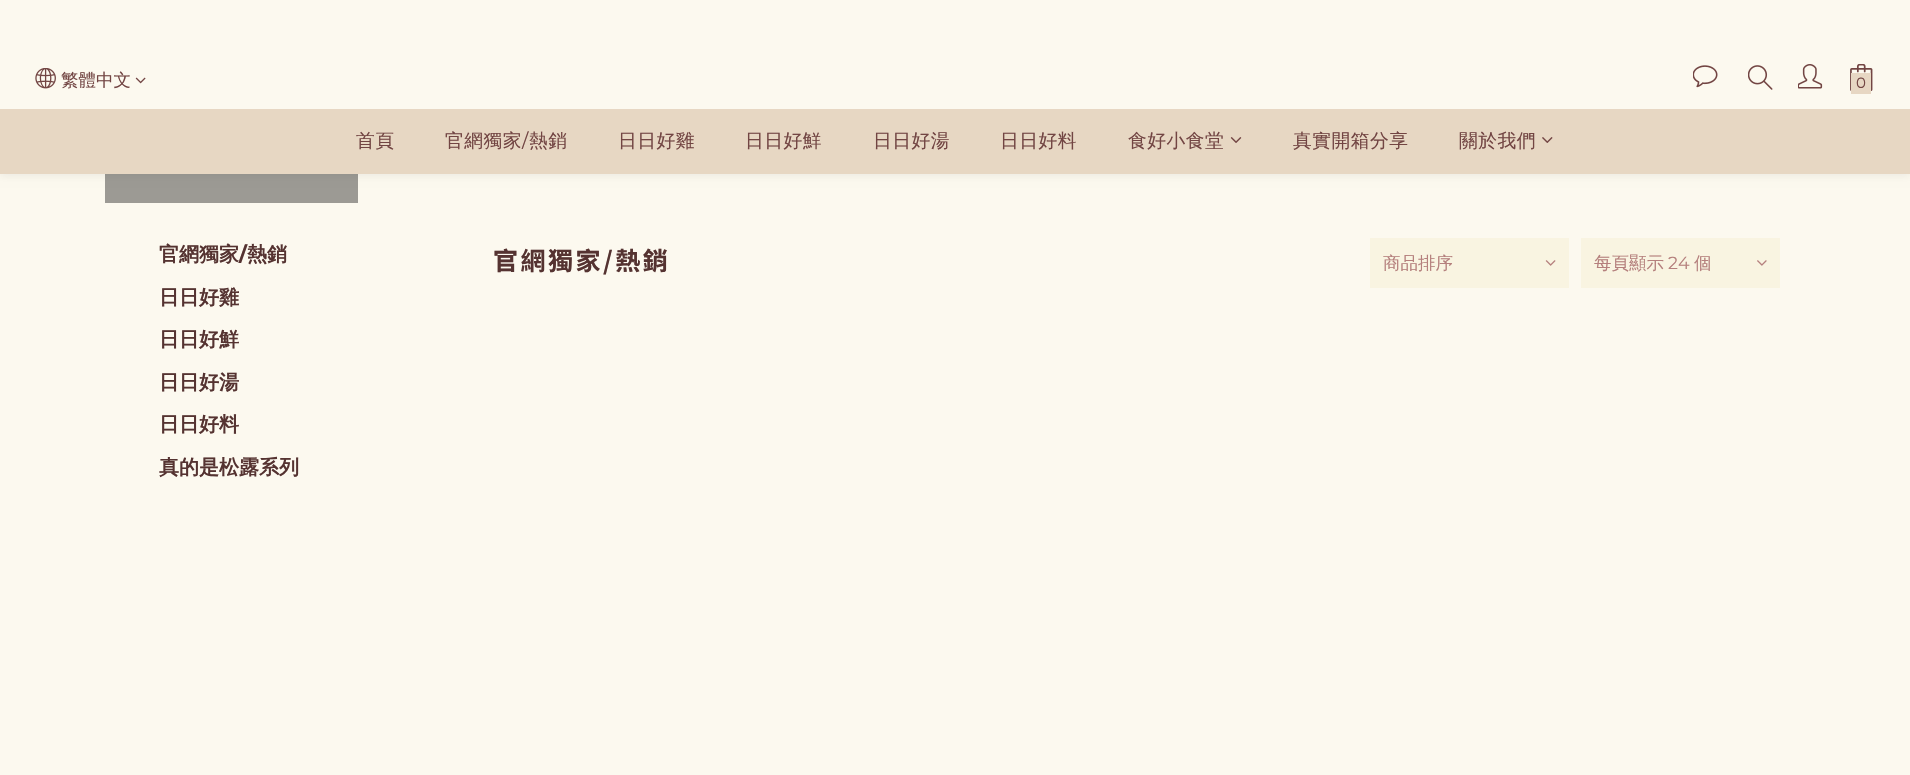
void draw(SkCanvas* c) {
SkPaint p;
p.setAntiAlias(true);
auto F=[&](const char* family, int weight, float size, bool italic = false){SkFontStyle style(weight, SkFontStyle::kNormal_Width,italic ? SkFontStyle::kItalic_Slant : SkFontStyle::kUpright_Slant);SkFont result(fontMgr->matchFamilyStyle(family, style), size);result.setSubpixel(true);return result;};
auto T=[&](const char* s, float x, float y, const SkFont& font){c->drawString(s, x, y, font, p);};
auto L=[&](const char* s, float x, float y, const SkFont& font, const SkPaint& ink, float letter, float word){std::vector<SkGlyphID> glyphs(font.countText(s, strlen(s), SkTextEncoding::kUTF8));std::vector<float> xs(glyphs.size());font.textToGlyphs(s, strlen(s), SkTextEncoding::kUTF8, glyphs);font.getXPos(glyphs, xs, x);float extra = 0;for (size_t i = 0; i < glyphs.size(); i++) {xs[i] += extra;extra += letter + word * (glyphs[i] == font.unicharToGlyph(' '));}c->drawTextBlob(SkTextBlob::MakeFromPosHGlyphs(glyphs, xs, y, font), 0, 0, ink);};
auto R=[&](float x, float y, float w, float h){c->drawRect(SkRect::MakeXYWH(x, y, w, h), p);};
auto I=[&](const char* path, float x, float y, float w, float h){auto image = SkImages::DeferredFromEncodedData(SkData::MakeFromFileName(path));c->drawImageRect(image, SkRect::MakeXYWH(x, y, w, h), SkSamplingOptions());};
c->clear(0xfffcf9ef);
p.setColor(0xff9c9a94);
R(105,174,253,29);
p.setColor(0x0f000000);
p.setMaskFilter(SkMaskFilter::MakeBlur(kNormal_SkBlurStyle, 4));
c->drawRect(SkRect::MakeXYWH(0,3,1910,173),p);
p.setMaskFilter(nullptr);
p.setColor(0xfffcf9ef);
R(0,0,1910,109);
I("1.png",35,68,21,21);
auto f1 = F("WenQuanYi Zen Hei",500,17.5);
p.setColor(0xff724543);
T("繁體中文",61,86,f1);
I("2.png",135,77,11,7);
I("3.png",1693,65,25,23);
I("4.png",1748,65,25,25);
I("5.png",1798,64,25,25);
I("6.png",1850,64,23,27);
p.setColor(0xffe7d7c3);
R(1851,73,20,21);
auto f2 = F("Montserrat",400,15);
p.setColor(0xff724543);
T("0",1856,88,f2);
p.setColor(0xffe7d7c3);
R(0,109,1910,65);
auto f3 = F("WenQuanYi Zen Hei",500,18.75);
p.setColor(0xff724543);
L("首頁",356,147,f3,p,.5,0);
L("官網獨家",445,147,f3,p,.5,0);
auto f4 = F("Montserrat",400,18.75);
L("/",522,147,f4,p,.5,0);
L("熱銷",529,147,f3,p,.5,0);
L("日日好雞",618,147,f3,p,.5,0);
L("日日好鮮",745,147,f3,p,.5,0);
L("日日好湯",873,147,f3,p,.5,0);
L("日日好料",1000,147,f3,p,.5,0);
L("食好小食堂",1128,147,f3,p,.5,0);
I("7.png",1230,137,12,6);
L("真實開箱分享",1293,147,f3,p,.5,0);
L("關於我們",1459,147,f3,p,.5,0);
I("8.png",1542,137,11,6);
auto f5 = F("WenQuanYi Zen Hei",700,20);
p.setColor(0xff553331);
T("官網獨家",159,261,f5);
auto f6 = F("Montserrat",700,20);
T("/",239,261,f6);
T("熱銷",247,261,f5);
T("日日好雞",159,304,f5);
T("日日好鮮",159,346,f5);
T("日日好湯",159,389,f5);
T("日日好料",159,431,f5);
T("真的是松露系列",159,474,f5);
auto f7 = F("Noto Sans TC",700,25);
L("官網獨家/熱銷",493,270,f7,p,2.5,0);
p.setColor(0xfff9f4e1);
R(1370,238,199,50);
p.setColor(0xffb5807d);
T("商品排序",1383,269,f1);
I("9.png",1545,260,11,6);
p.setColor(0xfff9f4e1);
R(1581,238,199,50);
p.setColor(0xffb5807d);
T("每頁顯示",1594,269,f1);
auto f8 = F("Montserrat",400,17.5);
T("24",1668,269,f8);
T("個",1694,269,f1);
I("10.png",1757,260,10,6);
}
